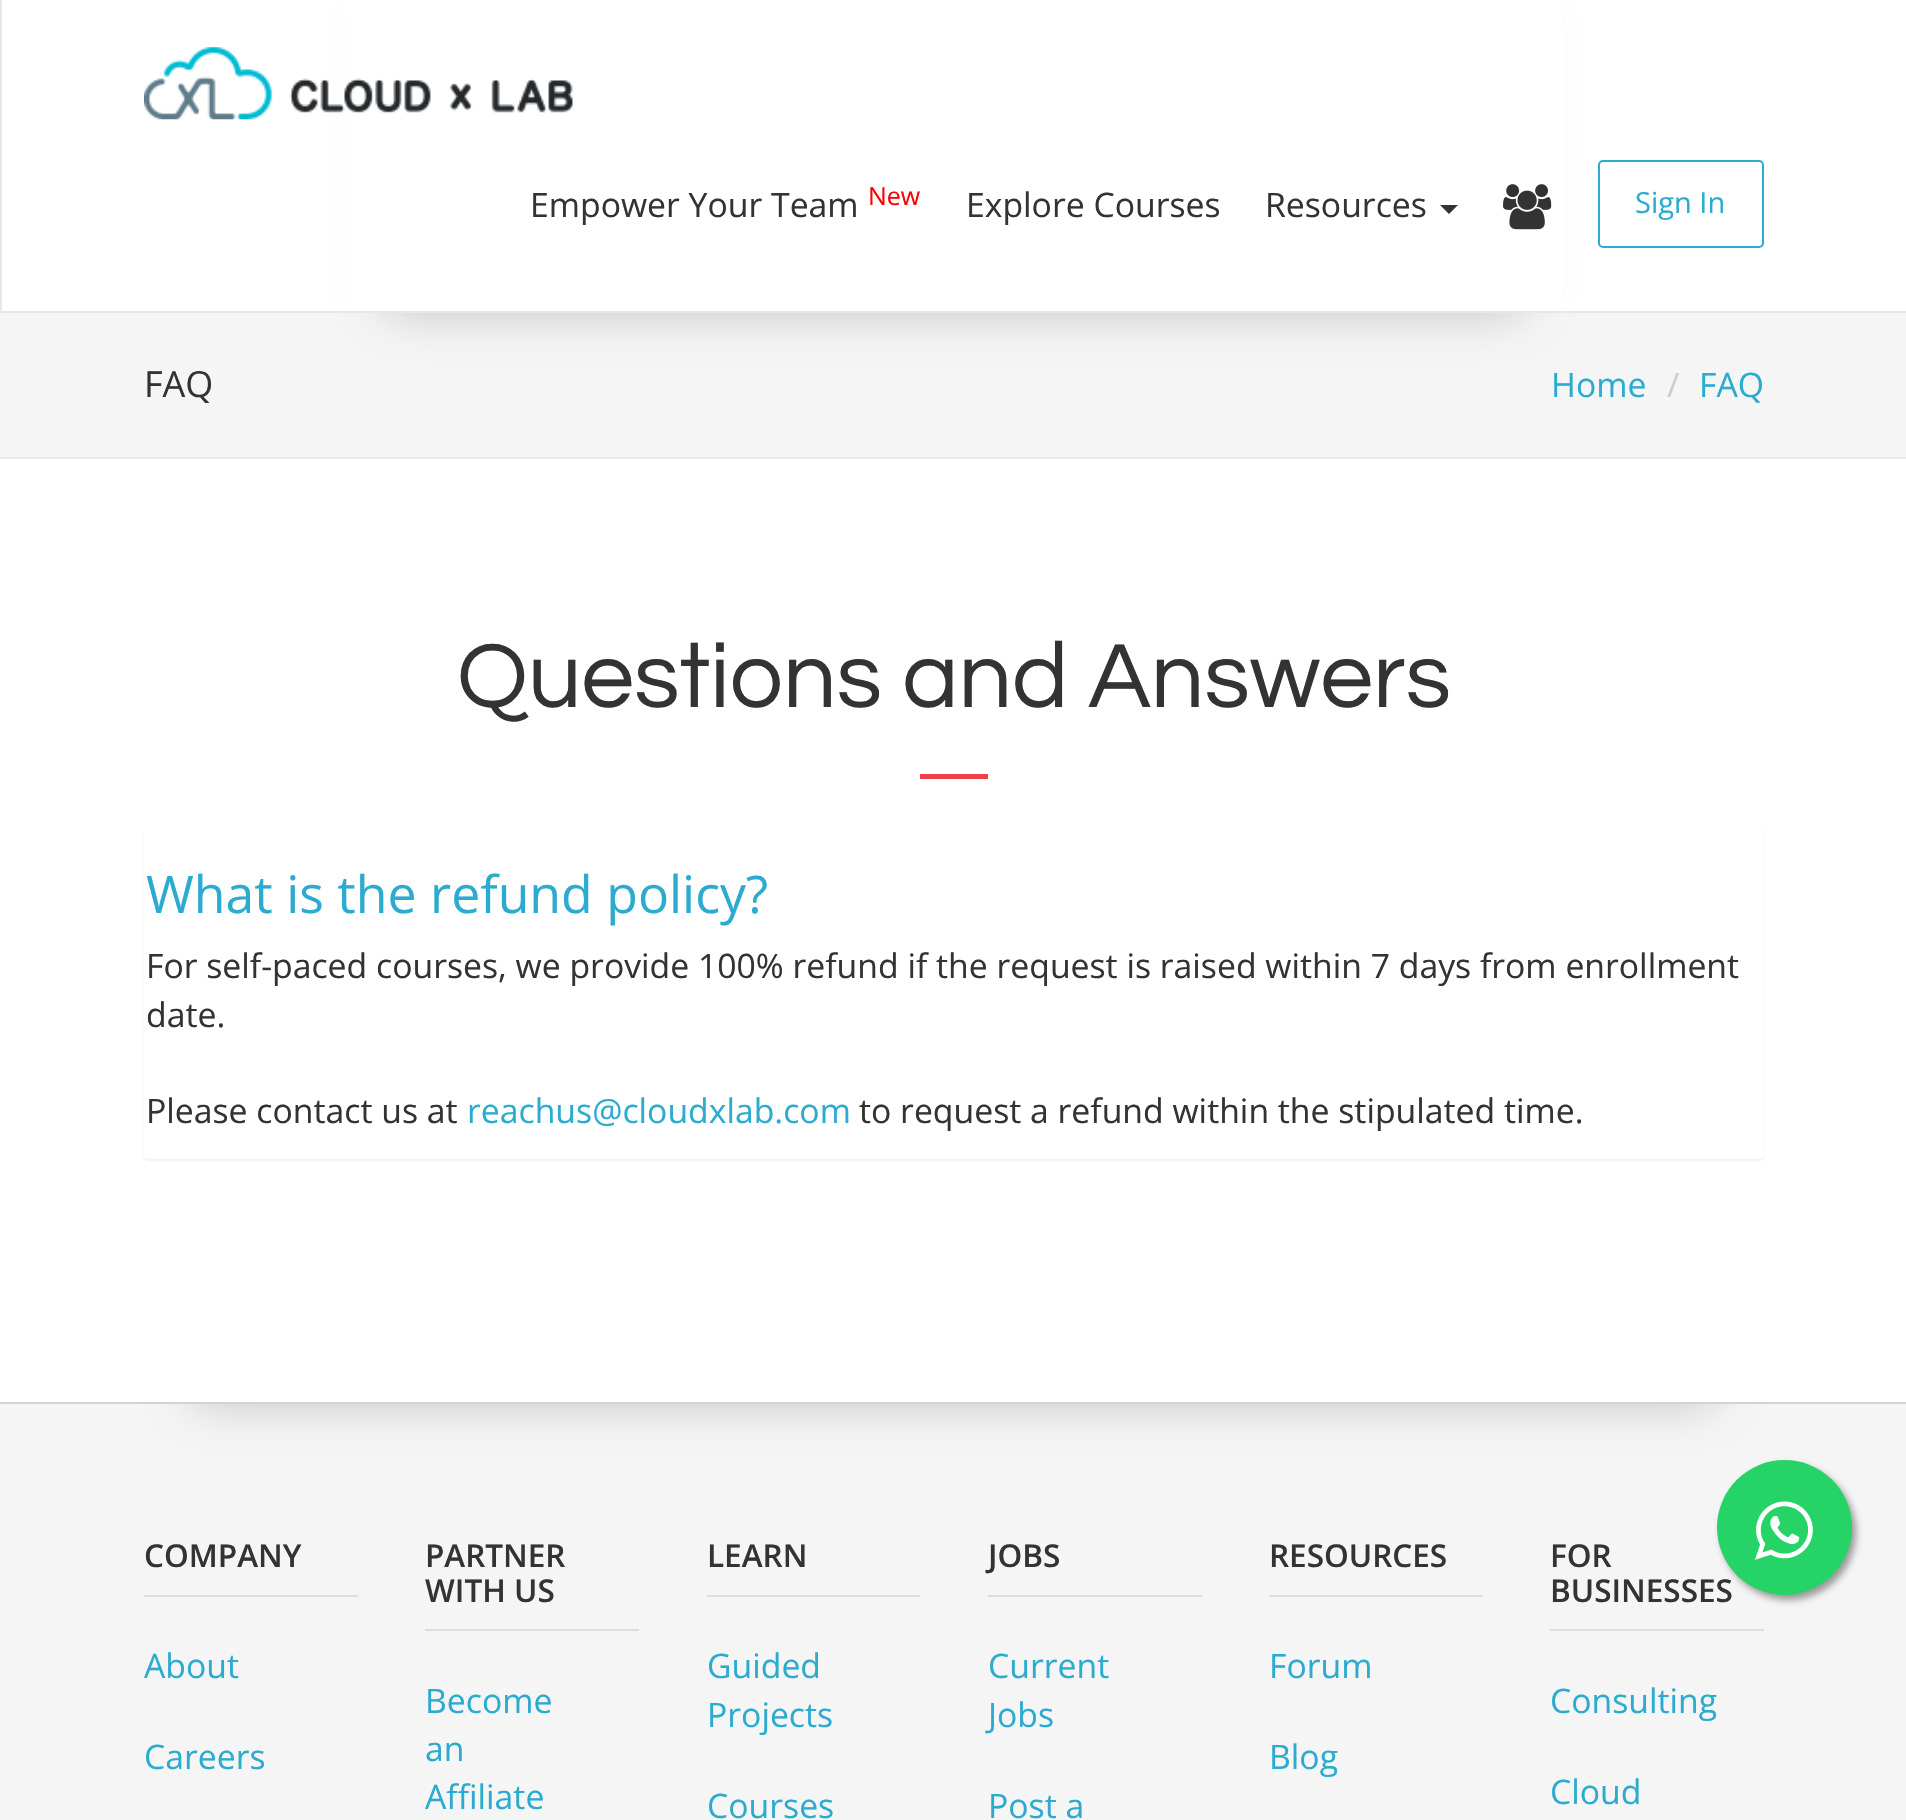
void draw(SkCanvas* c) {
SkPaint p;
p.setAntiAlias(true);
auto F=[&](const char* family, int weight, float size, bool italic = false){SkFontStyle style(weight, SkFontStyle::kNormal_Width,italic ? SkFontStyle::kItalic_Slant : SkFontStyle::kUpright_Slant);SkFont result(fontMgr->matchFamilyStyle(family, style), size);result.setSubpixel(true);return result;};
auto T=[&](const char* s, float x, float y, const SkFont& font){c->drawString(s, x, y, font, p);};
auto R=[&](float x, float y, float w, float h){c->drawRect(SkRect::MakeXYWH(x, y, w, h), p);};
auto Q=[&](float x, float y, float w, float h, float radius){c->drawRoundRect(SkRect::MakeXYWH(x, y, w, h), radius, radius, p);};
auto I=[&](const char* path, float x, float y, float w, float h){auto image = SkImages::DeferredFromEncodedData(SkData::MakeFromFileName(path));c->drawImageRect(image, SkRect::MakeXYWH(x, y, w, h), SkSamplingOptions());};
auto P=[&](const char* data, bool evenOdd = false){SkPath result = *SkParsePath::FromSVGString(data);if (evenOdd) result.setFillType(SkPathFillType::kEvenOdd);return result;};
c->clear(0xffffffff);
p.setColor(0xfff5f5f5);
R(0,313,1906,144);
p.setColor(0x33000000);
p.setMaskFilter(SkMaskFilter::MakeBlur(kNormal_SkBlurStyle, 22.5));
c->drawRoundRect(SkRect::MakeXYWH(383,0,1143,313),23,23,p);
p.setMaskFilter(nullptr);
p.setColor(0xffe9e9e9);
R(0,457,1906,2);
p.setColor(0xffed3e49);
R(920,774,68,5);
p.setColor(0x0d000000);
p.setMaskFilter(SkMaskFilter::MakeBlur(kNormal_SkBlurStyle, 1));
c->drawRoundRect(SkRect::MakeXYWH(144,826,1620,335),5,5,p);
p.setMaskFilter(nullptr);
p.setColor(0xffffffff);
Q(144,824,1620,335,5);
p.setColor(0xfff5f5f5);
R(0,1404,1906,416);
p.setColor(0xffd3d3d3);
R(0,1402,1906,2);
c->save();
c->clipRect(SkRect::MakeXYWH(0,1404,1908,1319));
p.setColor(0x33000000);
p.setMaskFilter(SkMaskFilter::MakeBlur(kNormal_SkBlurStyle, 22.5));
c->drawRoundRect(SkRect::MakeXYWH(191,83,1526,1321),23,23,p);
p.setMaskFilter(nullptr);
c->restore();
p.setColor(0xffffffff);
R(346,0,1217,311);
p.setColor(0xffe7e7e7);
R(0,311,1906,2);
R(0,0,2,313);
I("1.png",144,47,430,73);
auto f1 = F("Open Sans",400,33.75);
p.setColor(0xff333333);
T("Empower Your Team",530,217,f1);
auto f2 = F("Open Sans",400,25);
p.setColor(0xffff0000);
T("New",868,205,f2);
p.setColor(0xff333333);
T("Explore Courses",966,217,f1);
T("Resources",1265,217,f1);
c->drawPath(P("M1440 205h18l-9 9z"),p);
I("2.png",1503,184,49,46);
p.setStroke(true);
p.setStrokeWidth(2);
p.setColor(0xff2babcf);
c->drawRoundRect(SkRect::MakeXYWH(1599,161,164,86),4,4,p);
auto f3 = F("Open Sans",400,29);
p.setStroke(false);
T("Sign In",1635,213,f3);
auto f4 = F("Open Sans",400,36);
p.setColor(0xff333333);
T("FAQ",144,397,f4);
p.setColor(0xff2babcf);
T("Home",1551,397,f1);
p.setColor(0xffcccccc);
T("/",1667,397,f1);
p.setColor(0xff2babcf);
T("FAQ",1699,397,f1);
auto f5 = F("Questrial",400,94.5);
p.setColor(0xff333333);
T("Questions and Answers",457,707,f5);
auto f6 = F("Open Sans",400,51.75);
p.setColor(0xff2babcf);
T("What is the refund policy?",146,913,f6);
p.setColor(0xff333333);
T("For self-paced courses, we provide 100% refund if the request is raised within 7 days from enrollment",146,978,f1);
T("date.",146,1027,f1);
T("Please contact us at",146,1123,f1);
p.setColor(0xff2babcf);
T("reachus@cloudxlab.com",467,1123,f1);
p.setColor(0xff333333);
T("to request a refund within the stipulated time.",859,1123,f1);
p.setColor(0xffdddddd);
R(144,1595,214,2);
auto f7 = F("Open Sans",600,31.5);
p.setColor(0xff333333);
T("COMPANY",144,1567,f7);
p.setColor(0xff2babcf);
T("About",144,1678,f1);
T("Careers",144,1769,f1);
p.setColor(0xffdddddd);
R(425,1629,214,2);
p.setColor(0xff333333);
T("PARTNER",425,1567,f7);
T("WITH US",425,1602,f7);
p.setColor(0xff2babcf);
T("Become",425,1713,f1);
T("an",425,1761,f1);
T("Affiliate",425,1809,f1);
p.setColor(0xffdddddd);
R(707,1595,213,2);
p.setColor(0xff333333);
T("LEARN",707,1567,f7);
p.setColor(0xff2babcf);
T("Guided",707,1678,f1);
T("Projects",707,1727,f1);
T("Courses",707,1818,f1);
p.setColor(0xffdddddd);
R(988,1595,214,2);
p.setColor(0xff333333);
T("JOBS",988,1567,f7);
p.setColor(0xff2babcf);
T("Current",988,1678,f1);
T("Jobs",988,1727,f1);
T("Post a",988,1818,f1);
p.setColor(0xffdddddd);
R(1269,1595,214,2);
p.setColor(0xff333333);
T("RESOURCES",1269,1567,f7);
p.setColor(0xff2babcf);
T("Forum",1269,1678,f1);
T("Blog",1269,1769,f1);
p.setColor(0xffdddddd);
R(1550,1629,214,2);
p.setColor(0xff333333);
T("FOR",1550,1567,f7);
T("BUSINESSES",1550,1602,f7);
p.setColor(0xff2babcf);
T("Consulting",1550,1713,f1);
T("Cloud",1550,1804,f1);
p.setColor(0xff999999);
p.setMaskFilter(SkMaskFilter::MakeBlur(kNormal_SkBlurStyle, 3.5));
c->drawRoundRect(SkRect::MakeXYWH(1721,1465,135,135),67.5,67.5,p);
p.setMaskFilter(nullptr);
p.setColor(0xff25d366);
c->drawCircle(1784.5,1527.5,67.5,p);
I("3.png",1755,1501,58,59);
}
